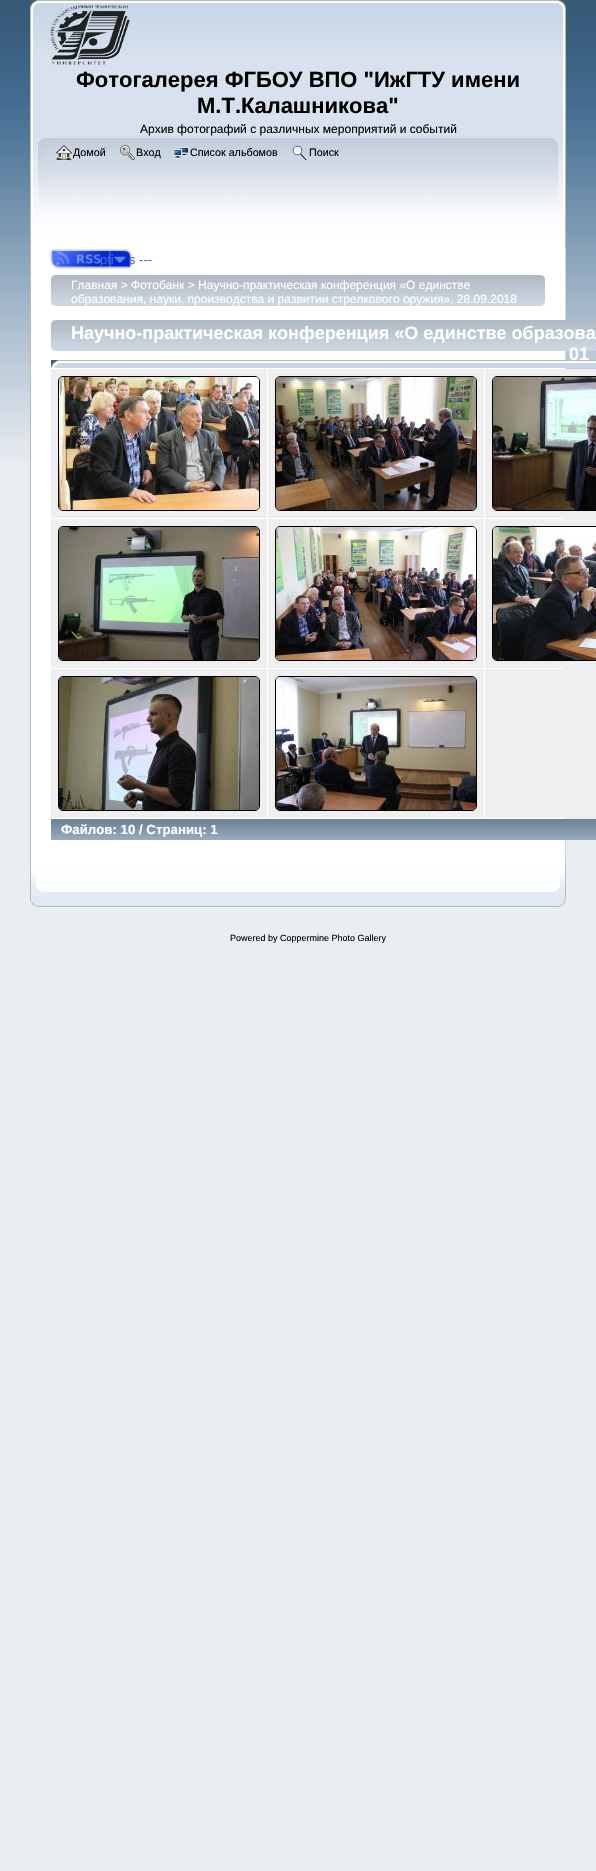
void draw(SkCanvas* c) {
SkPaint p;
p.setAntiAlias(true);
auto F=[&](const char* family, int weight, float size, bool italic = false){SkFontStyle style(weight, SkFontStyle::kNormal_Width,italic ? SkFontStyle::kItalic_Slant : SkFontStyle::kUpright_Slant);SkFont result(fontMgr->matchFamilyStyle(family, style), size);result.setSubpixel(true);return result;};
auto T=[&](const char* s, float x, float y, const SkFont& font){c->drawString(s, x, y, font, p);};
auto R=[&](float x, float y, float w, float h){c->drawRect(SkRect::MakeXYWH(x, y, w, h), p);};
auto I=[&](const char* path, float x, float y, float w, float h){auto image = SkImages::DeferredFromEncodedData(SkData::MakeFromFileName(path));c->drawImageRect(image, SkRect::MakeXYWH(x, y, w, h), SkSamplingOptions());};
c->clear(0xffe9eef2);
I("1.png",0,0,596,462);
I("2.png",30,0,528,138);
I("3.png",558,0,8,138);
I("4.png",50,5,80,60);
auto f1 = F("Liberation Sans",700,22);
p.setColor(0xff000000);
T("Фотогалерея ФГБОУ ВПО \"ИжГТУ имени",76,87,f1);
T("М.Т.Калашникова\"",197,113,f1);
auto f2 = F("Liberation Sans",400,12);
T("Архив фотографий с различных мероприятий и событий",140,133,f2);
I("5.png",30,138,522,110);
I("6.png",552,138,14,110);
I("7.png",56,145,16,16);
auto f3 = F("Liberation Sans",400,10.75);
T("Домой",73,156,f3);
I("8.png",120,145,15,15);
T("Вход",136,156,f3);
I("9.png",173,147,16,12);
T("Список альбомов",190,156,f3);
I("10.png",292,145,16,15);
T("Поиск",309,156,f3);
p.setColor(0xffffffff);
R(31,248,534,615);
p.setColor(0xffb7b7b7);
R(30,248,1,615);
p.setColor(0xffd4d4d4);
R(565,248,1,615);
I("11.png",50,249,83,20);
auto f4 = F("Liberation Sans",400,13);
p.setColor(0xff4a68e4);
T("pti",100,264,f4);
T("s ---",129,264,f4);
I("12.png",51,275,490,31);
I("13.png",541,275,4,31);
p.setColor(0xffffffff);
T("Главная > Фотобанк > Научно-практическая конференция «О единстве",71,289,f2);
T("образования, науки, производства и развитии стрелкового оружия». 28.09.2018",71,303,f2);
I("14.png",51,320,545,48);
auto f5 = F("Liberation Sans",700,18);
T("Научно-практическая конференция «О единстве образова",71,339,f5);
T("01",569,360,f5);
p.setColor(0xffefefef);
R(51,369,216,149);
p.setStroke(true);
p.setStrokeWidth(1);
p.setColor(0xff000000);
c->drawRoundRect(SkRect::MakeXYWH(58.5,376.5,201,134),4.5,4.5,p);
I("15.png",59,377,200,133);
p.setStroke(false);
p.setColor(0xffefefef);
R(268,369,216,149);
p.setStroke(true);
p.setColor(0xff000000);
c->drawRoundRect(SkRect::MakeXYWH(275.5,376.5,201,134),4.5,4.5,p);
I("16.png",276,377,200,133);
p.setStroke(false);
p.setColor(0xffefefef);
R(485,369,111,149);
p.setStroke(true);
p.setColor(0xff000000);
c->drawRoundRect(SkRect::MakeXYWH(492.5,376.5,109,134),4.5,4.5,p);
I("17.png",493,377,103,133);
p.setStroke(false);
p.setColor(0xffefefef);
R(51,519,216,149);
p.setStroke(true);
p.setColor(0xff000000);
c->drawRoundRect(SkRect::MakeXYWH(58.5,526.5,201,134),4.5,4.5,p);
I("18.png",59,527,200,133);
p.setStroke(false);
p.setColor(0xffefefef);
R(268,519,216,149);
p.setStroke(true);
p.setColor(0xff000000);
c->drawRoundRect(SkRect::MakeXYWH(275.5,526.5,201,134),4.5,4.5,p);
I("19.png",276,527,200,133);
p.setStroke(false);
p.setColor(0xffefefef);
R(485,519,111,149);
p.setStroke(true);
p.setColor(0xff000000);
c->drawRoundRect(SkRect::MakeXYWH(492.5,526.5,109,134),4.5,4.5,p);
I("20.png",493,527,103,133);
p.setStroke(false);
p.setColor(0xffefefef);
R(51,669,216,149);
p.setStroke(true);
p.setColor(0xff000000);
c->drawRoundRect(SkRect::MakeXYWH(58.5,676.5,201,134),4.5,4.5,p);
I("21.png",59,677,200,133);
p.setStroke(false);
p.setColor(0xffefefef);
R(268,669,216,149);
p.setStroke(true);
p.setColor(0xff000000);
c->drawRoundRect(SkRect::MakeXYWH(275.5,676.5,201,134),4.5,4.5,p);
I("22.png",276,677,200,133);
p.setStroke(false);
p.setColor(0xffefefef);
R(485,669,111,149);
I("23.png",51,819,545,21);
auto f6 = F("Liberation Sans",700,13.25);
p.setColor(0xffffffff);
T("Файлов: 10 / Страниц: 1",61,834,f6);
I("24.png",30,863,523,44);
I("25.png",553,863,13,44);
auto f7 = F("Liberation Sans",400,9);
p.setColor(0xff000000);
T("Powered by Coppermine Photo Gallery",230,941,f7);
}
